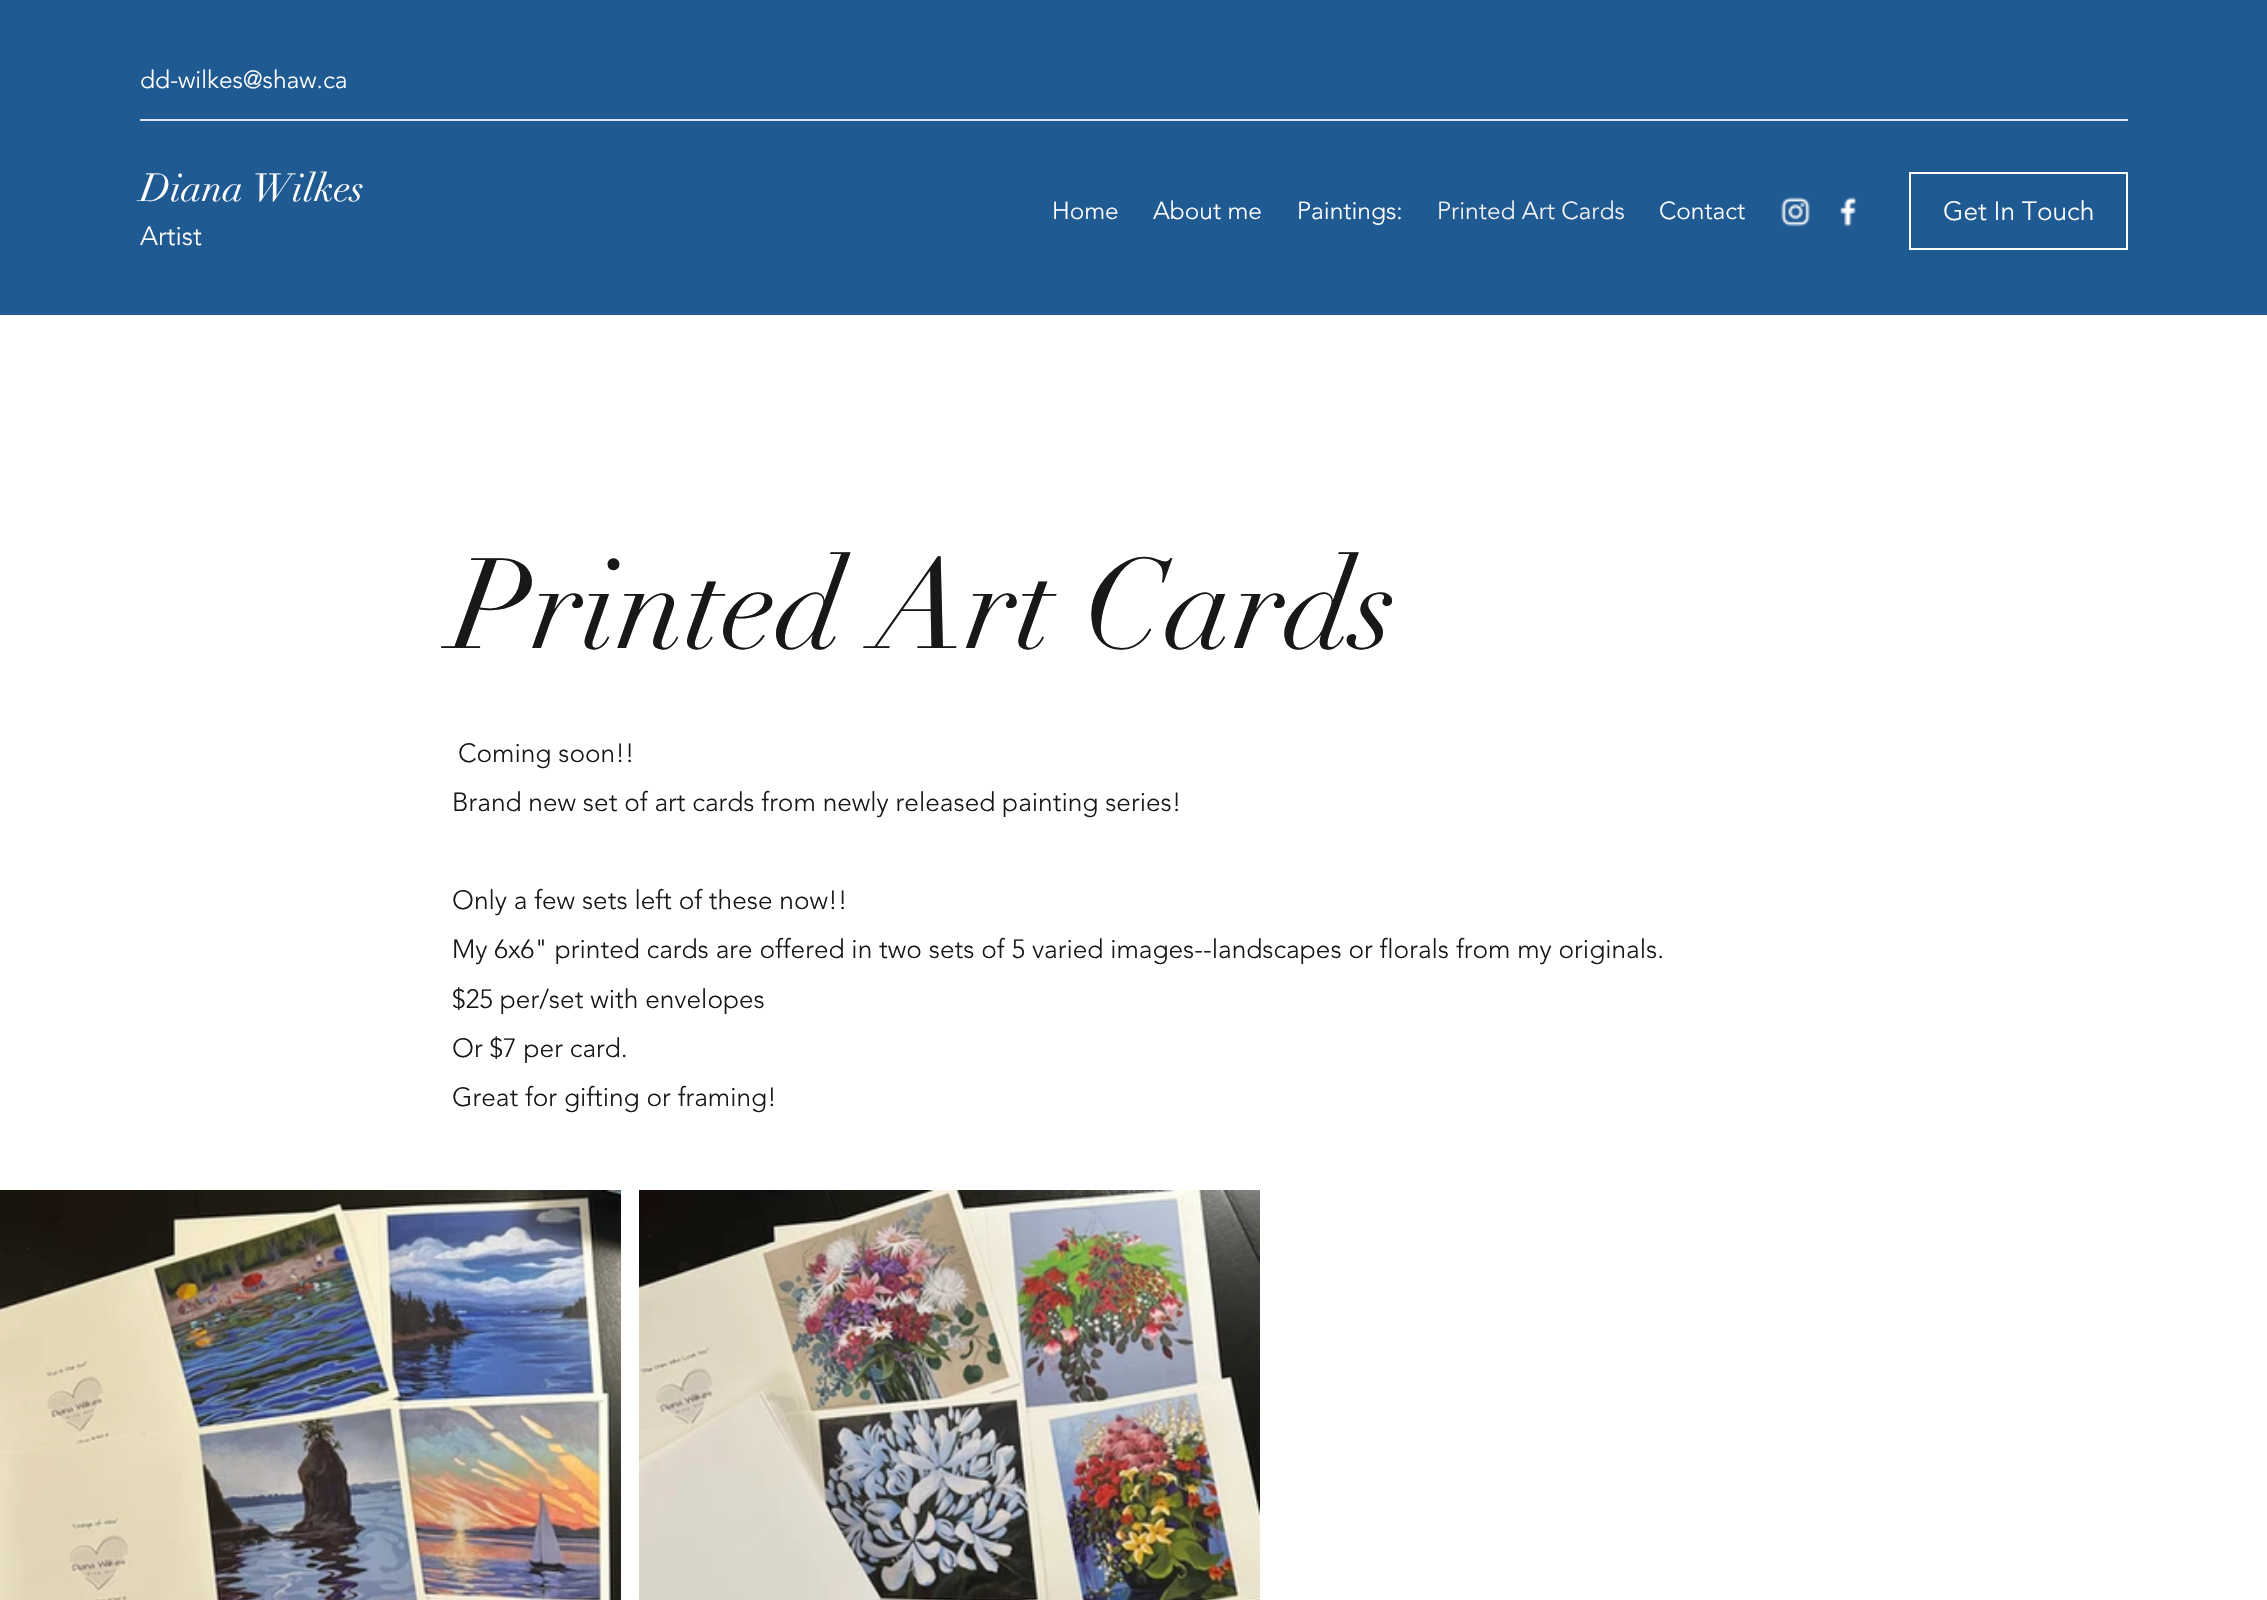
void draw(SkCanvas* c) {
SkPaint p;
p.setAntiAlias(true);
auto F=[&](const char* family, int weight, float size, bool italic = false){SkFontStyle style(weight, SkFontStyle::kNormal_Width,italic ? SkFontStyle::kItalic_Slant : SkFontStyle::kUpright_Slant);SkFont result(fontMgr->matchFamilyStyle(family, style), size);result.setSubpixel(true);return result;};
auto T=[&](const char* s, float x, float y, const SkFont& font){c->drawString(s, x, y, font, p);};
auto R=[&](float x, float y, float w, float h){c->drawRect(SkRect::MakeXYWH(x, y, w, h), p);};
auto I=[&](const char* path, float x, float y, float w, float h){auto image = SkImages::DeferredFromEncodedData(SkData::MakeFromFileName(path));c->drawImageRect(image, SkRect::MakeXYWH(x, y, w, h), SkSamplingOptions());};
c->clear(0xffffffff);
p.setColor(0xff205a93);
R(0,0,2267,315);
auto f1 = F("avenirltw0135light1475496",300,24.5);
p.setColor(0xffffffff);
T("dd-wilkes@shaw.ca",140,88,f1);
p.setColor(0xffdee6ef);
R(140,119,1988,2);
auto f2 = F("didot",400,38.5);
p.setColor(0xffffffff);
T("Diana Wilkes",140,201,f2);
auto f3 = F("avenirltw0135light1475496",300,26.25);
T("Artist",140,245,f3);
T("Home",1052,219,f1);
T("About me",1153,219,f1);
T("Paintings:",1297,219,f1);
p.setColor(0xfff2f2f3);
T("Printed Art Cards",1437,219,f1);
p.setColor(0xffffffff);
T("Contact",1659,219,f1);
I("1.png",1781,197,29,30);
I("2.png",1840,197,17,30);
p.setStroke(true);
p.setStrokeWidth(2);
c->drawRect(SkRect::MakeXYWH(1910,173,217,76),p);
p.setStroke(false);
T("Get In Touch",1943,220,f3);
auto f4 = F("didot",400,126);
p.setColor(0xff181818);
T("Printed Art Cards",452,648,f4);
T("Coming soon!!",458,762,f3);
T("Brand new set of art cards from newly released painting series!",452,811,f3);
T("Only a few sets left of these now!!",452,909,f3);
T("My 6x6\" printed cards are offered in two sets of 5 varied images--landscapes or florals from my originals.",452,958,f3);
T("$25 per/set with envelopes",452,1008,f3);
T("Or $7 per card.",452,1057,f3);
T("Great for gifting or framing!",452,1106,f3);
I("3.png",0,1190,621,410);
I("4.png",639,1190,621,410);
}
